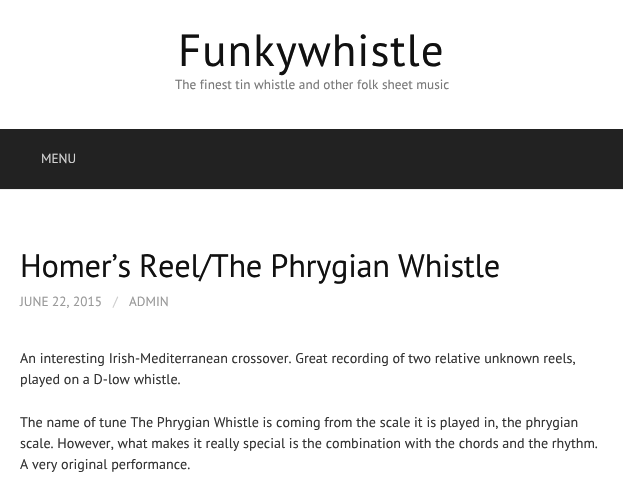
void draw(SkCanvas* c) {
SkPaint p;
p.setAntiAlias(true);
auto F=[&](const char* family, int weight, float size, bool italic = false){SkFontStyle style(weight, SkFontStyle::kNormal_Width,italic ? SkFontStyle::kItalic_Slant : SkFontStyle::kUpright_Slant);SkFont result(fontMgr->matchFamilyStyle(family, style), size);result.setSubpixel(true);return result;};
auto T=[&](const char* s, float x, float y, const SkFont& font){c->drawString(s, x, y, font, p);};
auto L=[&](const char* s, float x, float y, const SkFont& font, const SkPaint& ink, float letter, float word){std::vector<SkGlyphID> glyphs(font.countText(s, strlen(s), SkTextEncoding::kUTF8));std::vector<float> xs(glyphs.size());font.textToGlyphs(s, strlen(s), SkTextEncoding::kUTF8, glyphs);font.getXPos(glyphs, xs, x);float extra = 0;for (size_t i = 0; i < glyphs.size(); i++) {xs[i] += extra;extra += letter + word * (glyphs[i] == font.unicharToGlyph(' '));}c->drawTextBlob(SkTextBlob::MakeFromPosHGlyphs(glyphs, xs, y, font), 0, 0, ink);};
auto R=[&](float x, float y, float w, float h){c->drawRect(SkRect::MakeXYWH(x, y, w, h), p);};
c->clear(0xffffffff);
p.setColor(0xffeeeeee);
R(0,189,623,1);
auto f1 = F("PT Sans",400,45);
p.setColor(0xff111111);
L("Funkywhistle",178,66,f1,p,1,0);
auto f2 = F("PT Sans",400,13.25);
p.setColor(0xff777777);
T("The finest tin whistle and other folk sheet music",175,89,f2);
p.setColor(0xff222222);
R(0,129,623,60);
p.setColor(0xffd3d3d3);
T("MENU",41,163,f2);
auto f3 = F("PT Sans",400,32.4);
p.setColor(0xff111111);
L("Homer’s Reel/The Phrygian Whistle",20,277,f3,p,-.3,0);
p.setColor(0xff999999);
T("JUNE 22, 2015",20,306,f2);
p.setColor(0xffcccccc);
T("/",113,306,f2);
p.setColor(0xff999999);
T("ADMIN",129,306,f2);
auto f4 = F("PT Sans",400,14.1);
p.setColor(0xff333333);
T("An interesting Irish-Mediterranean crossover. Great recording of two relative unknown reels,",20,363,f4);
T("played on a D-low whistle.",20,384,f4);
T("The name of tune The Phrygian Whistle is coming from the scale it is played in, the phrygian",20,427,f4);
T("scale. However, what makes it really special is the combination with the chords and the rhythm.",20,448,f4);
T("A very original performance.",20,469,f4);
}
